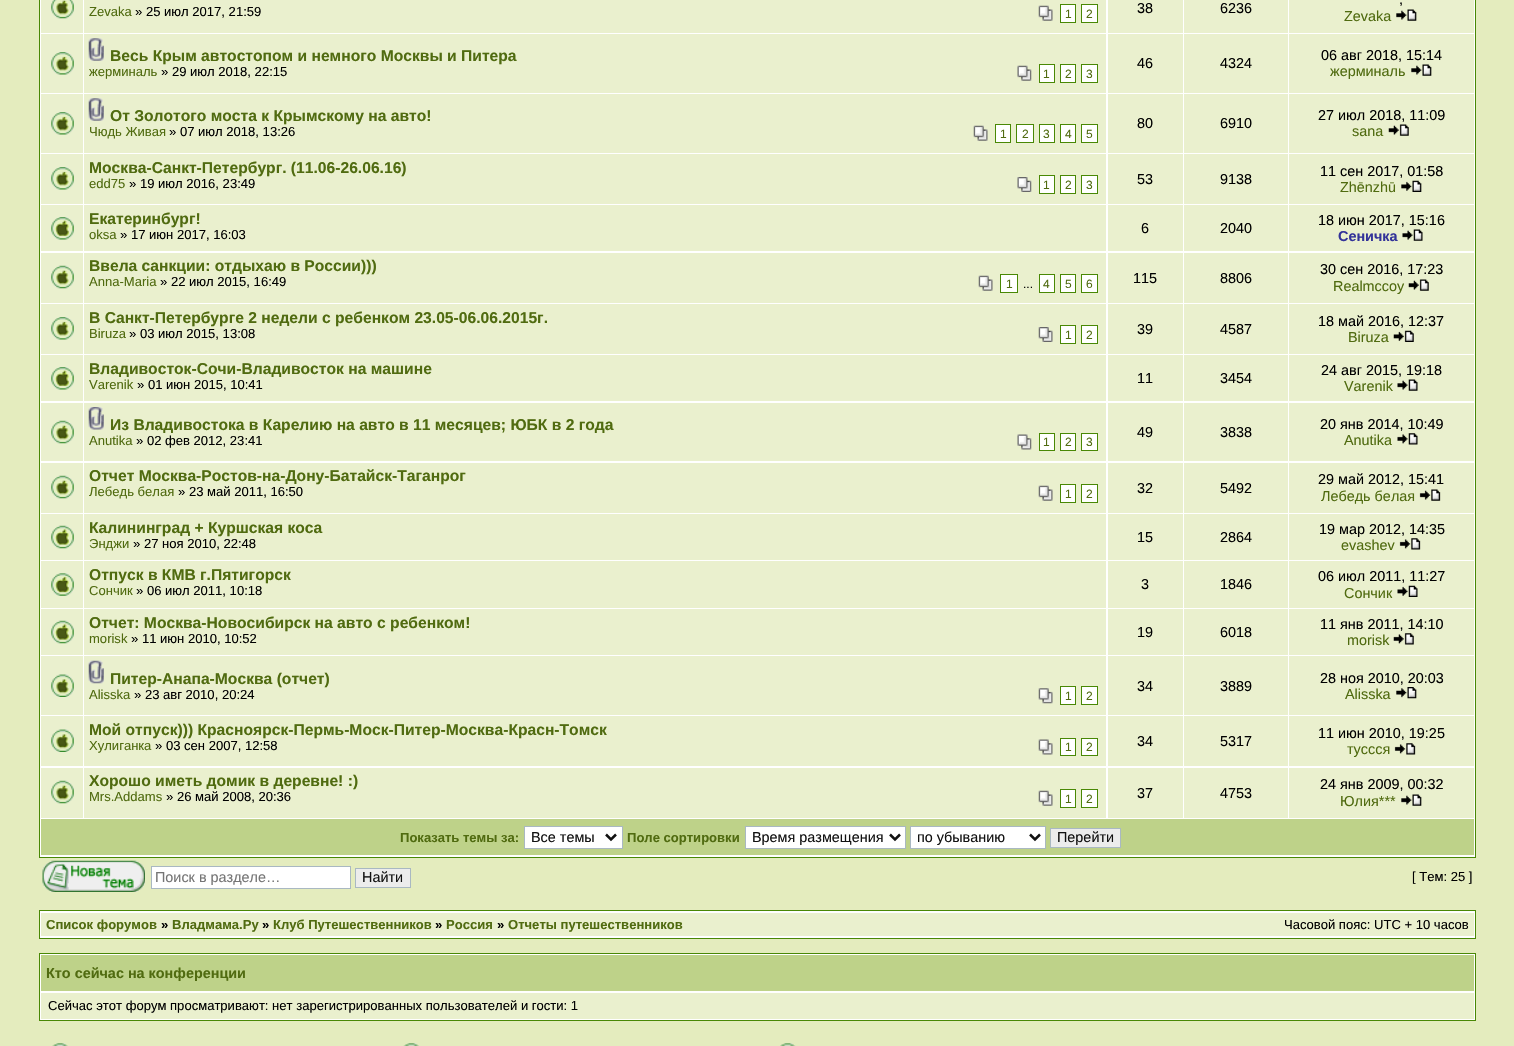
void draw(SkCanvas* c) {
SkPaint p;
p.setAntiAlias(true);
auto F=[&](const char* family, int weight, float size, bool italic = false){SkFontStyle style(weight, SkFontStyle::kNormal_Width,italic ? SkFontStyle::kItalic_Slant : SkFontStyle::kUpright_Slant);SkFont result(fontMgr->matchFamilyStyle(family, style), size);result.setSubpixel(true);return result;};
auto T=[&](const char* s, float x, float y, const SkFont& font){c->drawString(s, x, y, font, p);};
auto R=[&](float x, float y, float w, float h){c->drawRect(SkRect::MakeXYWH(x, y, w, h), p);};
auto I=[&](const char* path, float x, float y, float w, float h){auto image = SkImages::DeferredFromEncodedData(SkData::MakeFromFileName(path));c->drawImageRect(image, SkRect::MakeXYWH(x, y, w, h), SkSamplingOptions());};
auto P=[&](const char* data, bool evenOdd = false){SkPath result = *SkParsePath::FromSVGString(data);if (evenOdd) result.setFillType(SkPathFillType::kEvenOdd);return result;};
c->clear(0xffe4ecbe);
p.setColor(0xffffffff);
c->drawRect(SkRect::MakeXYWH(39.5,-.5,1436,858),p);
p.setStroke(true);
p.setStrokeWidth(1);
p.setColor(0xff498805);
c->drawRect(SkRect::MakeXYWH(39.5,-.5,1436,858),p);
p.setStroke(false);
p.setColor(0xffeaf0ce);
R(41,0,42,33);
I("1.png",51,0,23,19);
R(84,0,1022,33);
auto f1 = F("Liberation Sans",400,13.05);
p.setColor(0xff506b10);
T("Zevaka",89,16,f1);
p.setColor(0xff000000);
T("» 25 июл 2017, 21:59",135,16,f1);
I("2.png",1038,5,15,16);
p.setColor(0xffffffff);
c->drawRect(SkRect::MakeXYWH(1060.5,4.5,15,18),p);
p.setStroke(true);
p.setColor(0xff498805);
c->drawRect(SkRect::MakeXYWH(1060.5,4.5,15,18),p);
auto f2 = F("Liberation Sans",400,12);
p.setStroke(false);
p.setColor(0xff506b10);
T("1",1065,18,f2);
p.setColor(0xffffffff);
c->drawRect(SkRect::MakeXYWH(1081.5,4.5,16,18),p);
p.setStroke(true);
p.setColor(0xff498805);
c->drawRect(SkRect::MakeXYWH(1081.5,4.5,16,18),p);
p.setStroke(false);
p.setColor(0xff506b10);
T("2",1086,18,f2);
p.setColor(0xffeaf0ce);
R(1108,0,75,33);
auto f3 = F("Liberation Sans",400,14.4);
p.setColor(0xff000000);
T("38",1137,13,f3);
p.setColor(0xffeaf0ce);
R(1184,0,104,33);
p.setColor(0xff000000);
T("6236",1220,13,f3);
p.setColor(0xffeaf0ce);
R(1289,0,185,33);
p.setColor(0xff000000);
T(",",1399,4,f3);
p.setColor(0xff506b10);
T("Zevaka",1344,21,f3);
I("3.png",1396,9,21,12);
p.setColor(0xffeaf0ce);
R(41,34,42,59);
I("4.png",51,52,23,23);
R(84,34,1022,59);
I("5.png",88,38,16,23);
auto f4 = F("Liberation Sans",700,15.65);
p.setColor(0xff506b10);
T("Весь Крым автостопом и немного Москвы и Питера",110,61,f4);
T("жерминаль",89,76,f1);
p.setColor(0xff000000);
T("» 29 июл 2018, 22:15",161,76,f1);
I("6.png",1017,65,15,16);
p.setColor(0xffffffff);
c->drawRect(SkRect::MakeXYWH(1039.5,64.5,15,18),p);
p.setStroke(true);
p.setColor(0xff498805);
c->drawRect(SkRect::MakeXYWH(1039.5,64.5,15,18),p);
p.setStroke(false);
p.setColor(0xff506b10);
T("1",1043,78,f2);
p.setColor(0xffffffff);
c->drawRect(SkRect::MakeXYWH(1060.5,64.5,15,18),p);
p.setStroke(true);
p.setColor(0xff498805);
c->drawRect(SkRect::MakeXYWH(1060.5,64.5,15,18),p);
p.setStroke(false);
p.setColor(0xff506b10);
T("2",1065,78,f2);
p.setColor(0xffffffff);
c->drawRect(SkRect::MakeXYWH(1081.5,64.5,16,18),p);
p.setStroke(true);
p.setColor(0xff498805);
c->drawRect(SkRect::MakeXYWH(1081.5,64.5,16,18),p);
p.setStroke(false);
p.setColor(0xff506b10);
T("3",1086,78,f2);
p.setColor(0xffeaf0ce);
R(1108,34,75,59);
p.setColor(0xff000000);
T("46",1137,68,f3);
p.setColor(0xffeaf0ce);
R(1184,34,104,59);
p.setColor(0xff000000);
T("4324",1220,68,f3);
p.setColor(0xffeaf0ce);
R(1289,34,185,59);
p.setColor(0xff000000);
T("06 авг 2018, 15:14",1321,60,f3);
p.setColor(0xff506b10);
T("жерминаль",1330,76,f3);
I("3.png",1411,64,21,12);
p.setColor(0xffeaf0ce);
R(41,94,42,59);
I("4.png",51,112,23,23);
R(84,94,1022,59);
I("5.png",88,98,16,23);
p.setColor(0xff506b10);
T("От Золотого моста к Крымскому на авто!",110,121,f4);
T("Чюдь Живая",89,136,f1);
p.setColor(0xff000000);
T("» 07 июл 2018, 13:26",169,136,f1);
I("7.png",973,125,15,16);
p.setColor(0xffffffff);
c->drawRect(SkRect::MakeXYWH(995.5,124.5,15,18),p);
p.setStroke(true);
p.setColor(0xff498805);
c->drawRect(SkRect::MakeXYWH(995.5,124.5,15,18),p);
p.setStroke(false);
p.setColor(0xff506b10);
T("1",1000,138,f2);
p.setColor(0xffffffff);
c->drawRect(SkRect::MakeXYWH(1016.5,124.5,17,18),p);
p.setStroke(true);
p.setColor(0xff498805);
c->drawRect(SkRect::MakeXYWH(1016.5,124.5,17,18),p);
p.setStroke(false);
p.setColor(0xff506b10);
T("2",1022,138,f2);
p.setColor(0xffffffff);
c->drawRect(SkRect::MakeXYWH(1039.5,124.5,15,18),p);
p.setStroke(true);
p.setColor(0xff498805);
c->drawRect(SkRect::MakeXYWH(1039.5,124.5,15,18),p);
p.setStroke(false);
p.setColor(0xff506b10);
T("3",1043,138,f2);
p.setColor(0xffffffff);
c->drawRect(SkRect::MakeXYWH(1060.5,124.5,15,18),p);
p.setStroke(true);
p.setColor(0xff498805);
c->drawRect(SkRect::MakeXYWH(1060.5,124.5,15,18),p);
p.setStroke(false);
p.setColor(0xff506b10);
T("4",1065,138,f2);
p.setColor(0xffffffff);
c->drawRect(SkRect::MakeXYWH(1081.5,124.5,16,18),p);
p.setStroke(true);
p.setColor(0xff498805);
c->drawRect(SkRect::MakeXYWH(1081.5,124.5,16,18),p);
p.setStroke(false);
p.setColor(0xff506b10);
T("5",1086,138,f2);
p.setColor(0xffeaf0ce);
R(1108,94,75,59);
p.setColor(0xff000000);
T("80",1137,128,f3);
p.setColor(0xffeaf0ce);
R(1184,94,104,59);
p.setColor(0xff000000);
T("6910",1220,128,f3);
p.setColor(0xffeaf0ce);
R(1289,94,185,59);
p.setColor(0xff000000);
T("27 июл 2018, 11:09",1318,120,f3);
p.setColor(0xff506b10);
T("sana",1352,136,f3);
I("8.png",1388,124,21,12);
p.setColor(0xffeaf0ce);
R(41,154,42,50);
I("4.png",51,167,23,23);
R(84,154,1022,50);
p.setColor(0xff506b10);
T("Москва-Санкт-Петербург. (11.06-26.06.16)",89,173,f4);
T("edd75",89,188,f1);
p.setColor(0xff000000);
T("» 19 июл 2016, 23:49",129,188,f1);
I("9.png",1017,177,15,15);
p.setColor(0xffffffff);
c->drawRect(SkRect::MakeXYWH(1039.5,175.5,15,18),p);
p.setStroke(true);
p.setColor(0xff498805);
c->drawRect(SkRect::MakeXYWH(1039.5,175.5,15,18),p);
p.setStroke(false);
p.setColor(0xff506b10);
T("1",1043,189,f2);
p.setColor(0xffffffff);
c->drawRect(SkRect::MakeXYWH(1060.5,175.5,15,18),p);
p.setStroke(true);
p.setColor(0xff498805);
c->drawRect(SkRect::MakeXYWH(1060.5,175.5,15,18),p);
p.setStroke(false);
p.setColor(0xff506b10);
T("2",1065,189,f2);
p.setColor(0xffffffff);
c->drawRect(SkRect::MakeXYWH(1081.5,175.5,16,18),p);
p.setStroke(true);
p.setColor(0xff498805);
c->drawRect(SkRect::MakeXYWH(1081.5,175.5,16,18),p);
p.setStroke(false);
p.setColor(0xff506b10);
T("3",1086,189,f2);
p.setColor(0xffeaf0ce);
R(1108,154,75,50);
p.setColor(0xff000000);
T("53",1137,184,f3);
p.setColor(0xffeaf0ce);
R(1184,154,104,50);
p.setColor(0xff000000);
T("9138",1220,184,f3);
p.setColor(0xffeaf0ce);
R(1289,154,185,50);
p.setColor(0xff000000);
T("11 сен 2017, 01:58",1320,176,f3);
p.setColor(0xff506b10);
T("Zhēnzhū",1340,192,f3);
I("10.png",1401,180,21,12);
p.setColor(0xffeaf0ce);
R(41,205,42,46);
I("11.png",51,217,23,23);
R(84,205,1022,46);
p.setColor(0xff506b10);
T("Екатеринбург!",89,224,f4);
T("oksa",89,239,f1);
p.setColor(0xff000000);
T("» 17 июн 2017, 16:03",120,239,f1);
p.setColor(0xffeaf0ce);
R(1108,205,75,46);
p.setColor(0xff000000);
T("6",1141,233,f3);
p.setColor(0xffeaf0ce);
R(1184,205,104,46);
p.setColor(0xff000000);
T("2040",1220,233,f3);
p.setColor(0xffeaf0ce);
R(1289,205,185,46);
p.setColor(0xff000000);
T("18 июн 2017, 15:16",1318,225,f3);
auto f5 = F("Liberation Sans",700,14.4);
p.setColor(0xff333399);
T("Сеничка",1338,241,f5);
I("12.png",1402,229,21,12);
p.setColor(0xffeaf0ce);
R(41,253,42,50);
I("13.png",51,265,23,24);
R(84,253,1022,50);
p.setColor(0xff506b10);
T("Ввела санкции: отдыхаю в России)))",89,271,f4);
T("Anna-Maria",89,286,f1);
p.setColor(0xff000000);
T("» 22 июл 2015, 16:49",160,286,f1);
I("7.png",978,275,15,16);
p.setColor(0xffffffff);
c->drawRect(SkRect::MakeXYWH(1000.5,274.5,17,18),p);
p.setStroke(true);
p.setColor(0xff498805);
c->drawRect(SkRect::MakeXYWH(1000.5,274.5,17,18),p);
p.setStroke(false);
p.setColor(0xff506b10);
T("1",1006,288,f2);
p.setColor(0xff000000);
T("...",1023,288,f2);
p.setColor(0xffffffff);
c->drawRect(SkRect::MakeXYWH(1039.5,274.5,15,18),p);
p.setStroke(true);
p.setColor(0xff498805);
c->drawRect(SkRect::MakeXYWH(1039.5,274.5,15,18),p);
p.setStroke(false);
p.setColor(0xff506b10);
T("4",1043,288,f2);
p.setColor(0xffffffff);
c->drawRect(SkRect::MakeXYWH(1060.5,274.5,15,18),p);
p.setStroke(true);
p.setColor(0xff498805);
c->drawRect(SkRect::MakeXYWH(1060.5,274.5,15,18),p);
p.setStroke(false);
p.setColor(0xff506b10);
T("5",1065,288,f2);
p.setColor(0xffffffff);
c->drawRect(SkRect::MakeXYWH(1081.5,274.5,16,18),p);
p.setStroke(true);
p.setColor(0xff498805);
c->drawRect(SkRect::MakeXYWH(1081.5,274.5,16,18),p);
p.setStroke(false);
p.setColor(0xff506b10);
T("6",1086,288,f2);
p.setColor(0xffeaf0ce);
R(1108,253,75,50);
p.setColor(0xff000000);
T("115",1133,283,f3);
p.setColor(0xffeaf0ce);
R(1184,253,104,50);
p.setColor(0xff000000);
T("8806",1220,283,f3);
p.setColor(0xffeaf0ce);
R(1289,253,185,50);
p.setColor(0xff000000);
T("30 сен 2016, 17:23",1320,274,f3);
p.setColor(0xff506b10);
T("Realmccoy",1333,291,f3);
I("8.png",1408,279,21,12);
p.setColor(0xffeaf0ce);
R(41,304,42,50);
I("4.png",51,317,23,23);
R(84,304,1022,50);
p.setColor(0xff506b10);
T("В Санкт-Петербурге 2 недели с ребенком 23.05-06.06.2015г.",89,323,f4);
T("Biruza",89,338,f1);
p.setColor(0xff000000);
T("» 03 июл 2015, 13:08",129,338,f1);
I("14.png",1038,327,15,15);
p.setColor(0xffffffff);
c->drawRect(SkRect::MakeXYWH(1060.5,325.5,15,18),p);
p.setStroke(true);
p.setColor(0xff498805);
c->drawRect(SkRect::MakeXYWH(1060.5,325.5,15,18),p);
p.setStroke(false);
p.setColor(0xff506b10);
T("1",1065,339,f2);
p.setColor(0xffffffff);
c->drawRect(SkRect::MakeXYWH(1081.5,325.5,16,18),p);
p.setStroke(true);
p.setColor(0xff498805);
c->drawRect(SkRect::MakeXYWH(1081.5,325.5,16,18),p);
p.setStroke(false);
p.setColor(0xff506b10);
T("2",1086,339,f2);
p.setColor(0xffeaf0ce);
R(1108,304,75,50);
p.setColor(0xff000000);
T("39",1137,334,f3);
p.setColor(0xffeaf0ce);
R(1184,304,104,50);
p.setColor(0xff000000);
T("4587",1220,334,f3);
p.setColor(0xffeaf0ce);
R(1289,304,185,50);
p.setColor(0xff000000);
T("18 май 2016, 12:37",1318,326,f3);
p.setColor(0xff506b10);
T("Biruza",1348,342,f3);
I("15.png",1393,330,21,12);
p.setColor(0xffeaf0ce);
R(41,355,42,46);
I("16.png",51,367,23,23);
R(84,355,1022,46);
p.setColor(0xff506b10);
T("Владивосток-Сочи-Владивосток на машине",89,374,f4);
T("Varenik",89,389,f1);
p.setColor(0xff000000);
T("» 01 июн 2015, 10:41",137,389,f1);
p.setColor(0xffeaf0ce);
R(1108,355,75,46);
p.setColor(0xff000000);
T("11",1137,383,f3);
p.setColor(0xffeaf0ce);
R(1184,355,104,46);
p.setColor(0xff000000);
T("3454",1220,383,f3);
p.setColor(0xffeaf0ce);
R(1289,355,185,46);
p.setColor(0xff000000);
T("24 авг 2015, 19:18",1321,375,f3);
p.setColor(0xff506b10);
T("Varenik",1344,391,f3);
I("17.png",1397,379,21,12);
p.setColor(0xffeaf0ce);
R(41,403,42,58);
I("13.png",51,420,23,24);
R(84,403,1022,58);
I("18.png",88,407,16,23);
p.setColor(0xff506b10);
T("Из Владивостока в Карелию на авто в 11 месяцев; ЮБК в 2 года",110,430,f4);
T("Anutika",89,445,f1);
p.setColor(0xff000000);
T("» 02 фев 2012, 23:41",136,445,f1);
I("19.png",1017,434,15,16);
p.setColor(0xffffffff);
c->drawRect(SkRect::MakeXYWH(1039.5,433.5,15,17),p);
p.setStroke(true);
p.setColor(0xff498805);
c->drawRect(SkRect::MakeXYWH(1039.5,433.5,15,17),p);
p.setStroke(false);
p.setColor(0xff506b10);
T("1",1043,446,f2);
p.setColor(0xffffffff);
c->drawRect(SkRect::MakeXYWH(1060.5,433.5,15,17),p);
p.setStroke(true);
p.setColor(0xff498805);
c->drawRect(SkRect::MakeXYWH(1060.5,433.5,15,17),p);
p.setStroke(false);
p.setColor(0xff506b10);
T("2",1065,446,f2);
p.setColor(0xffffffff);
c->drawRect(SkRect::MakeXYWH(1081.5,433.5,16,17),p);
p.setStroke(true);
p.setColor(0xff498805);
c->drawRect(SkRect::MakeXYWH(1081.5,433.5,16,17),p);
p.setStroke(false);
p.setColor(0xff506b10);
T("3",1086,446,f2);
p.setColor(0xffeaf0ce);
R(1108,403,75,58);
p.setColor(0xff000000);
T("49",1137,437,f3);
p.setColor(0xffeaf0ce);
R(1184,403,104,58);
p.setColor(0xff000000);
T("3838",1220,437,f3);
p.setColor(0xffeaf0ce);
R(1289,403,185,58);
p.setColor(0xff000000);
T("20 янв 2014, 10:49",1320,429,f3);
p.setColor(0xff506b10);
T("Anutika",1344,445,f3);
I("20.png",1397,433,21,12);
p.setColor(0xffeaf0ce);
R(41,463,42,50);
I("13.png",51,475,23,24);
R(84,463,1022,50);
p.setColor(0xff506b10);
T("Отчет Москва-Ростов-на-Дону-Батайск-Таганрог",89,481,f4);
T("Лебедь белая",89,496,f1);
p.setColor(0xff000000);
T("» 23 май 2011, 16:50",178,496,f1);
I("2.png",1038,485,15,16);
p.setColor(0xffffffff);
c->drawRect(SkRect::MakeXYWH(1060.5,484.5,15,18),p);
p.setStroke(true);
p.setColor(0xff498805);
c->drawRect(SkRect::MakeXYWH(1060.5,484.5,15,18),p);
p.setStroke(false);
p.setColor(0xff506b10);
T("1",1065,498,f2);
p.setColor(0xffffffff);
c->drawRect(SkRect::MakeXYWH(1081.5,484.5,16,18),p);
p.setStroke(true);
p.setColor(0xff498805);
c->drawRect(SkRect::MakeXYWH(1081.5,484.5,16,18),p);
p.setStroke(false);
p.setColor(0xff506b10);
T("2",1086,498,f2);
p.setColor(0xffeaf0ce);
R(1108,463,75,50);
p.setColor(0xff000000);
T("32",1137,493,f3);
p.setColor(0xffeaf0ce);
R(1184,463,104,50);
p.setColor(0xff000000);
T("5492",1220,493,f3);
p.setColor(0xffeaf0ce);
R(1289,463,185,50);
p.setColor(0xff000000);
T("29 май 2012, 15:41",1318,484,f3);
p.setColor(0xff506b10);
T("Лебедь белая",1321,501,f3);
I("21.png",1419,489,22,12);
p.setColor(0xffeaf0ce);
R(41,514,42,46);
I("22.png",51,525,23,24);
R(84,514,1022,46);
p.setColor(0xff506b10);
T("Калининград + Куршская коса",89,533,f4);
T("Энджи",89,548,f1);
p.setColor(0xff000000);
T("» 27 ноя 2010, 22:48",133,548,f1);
p.setColor(0xffeaf0ce);
R(1108,514,75,46);
p.setColor(0xff000000);
T("15",1137,542,f3);
p.setColor(0xffeaf0ce);
R(1184,514,104,46);
p.setColor(0xff000000);
T("2864",1220,542,f3);
p.setColor(0xffeaf0ce);
R(1289,514,185,46);
p.setColor(0xff000000);
T("19 мар 2012, 14:35",1319,534,f3);
p.setColor(0xff506b10);
T("evashev",1341,550,f3);
I("23.png",1399,538,22,12);
p.setColor(0xffeaf0ce);
R(41,561,42,47);
I("24.png",51,573,23,23);
R(84,561,1022,47);
p.setColor(0xff506b10);
T("Отпуск в КМВ г.Пятигорск",89,580,f4);
T("Сончик",89,595,f1);
p.setColor(0xff000000);
T("» 06 июл 2011, 10:18",136,595,f1);
p.setColor(0xffeaf0ce);
R(1108,561,75,47);
p.setColor(0xff000000);
T("3",1141,589,f3);
p.setColor(0xffeaf0ce);
R(1184,561,104,47);
p.setColor(0xff000000);
T("1846",1220,589,f3);
p.setColor(0xffeaf0ce);
R(1289,561,185,47);
p.setColor(0xff000000);
T("06 июл 2011, 11:27",1318,581,f3);
p.setColor(0xff506b10);
T("Сончик",1344,598,f3);
I("25.png",1397,585,21,12);
p.setColor(0xffeaf0ce);
R(41,609,42,46);
I("26.png",51,620,23,24);
R(84,609,1022,46);
p.setColor(0xff506b10);
T("Отчет: Москва-Новосибирск на авто с ребенком!",89,628,f4);
T("morisk",89,643,f1);
p.setColor(0xff000000);
T("» 11 июн 2010, 10:52",131,643,f1);
p.setColor(0xffeaf0ce);
R(1108,609,75,46);
p.setColor(0xff000000);
T("19",1137,637,f3);
p.setColor(0xffeaf0ce);
R(1184,609,104,46);
p.setColor(0xff000000);
T("6018",1220,637,f3);
p.setColor(0xffeaf0ce);
R(1289,609,185,46);
p.setColor(0xff000000);
T("11 янв 2011, 14:10",1320,629,f3);
p.setColor(0xff506b10);
T("morisk",1347,645,f3);
I("27.png",1393,633,21,12);
p.setColor(0xffeaf0ce);
R(41,656,42,59);
I("28.png",51,674,23,23);
R(84,656,1022,59);
I("29.png",88,660,16,24);
p.setColor(0xff506b10);
T("Питер-Анапа-Москва (отчет)",110,684,f4);
T("Alisska",89,699,f1);
p.setColor(0xff000000);
T("» 23 авг 2010, 20:24",134,699,f1);
I("30.png",1038,688,15,16);
p.setColor(0xffffffff);
c->drawRect(SkRect::MakeXYWH(1060.5,686.5,15,18),p);
p.setStroke(true);
p.setColor(0xff498805);
c->drawRect(SkRect::MakeXYWH(1060.5,686.5,15,18),p);
p.setStroke(false);
p.setColor(0xff506b10);
T("1",1065,700,f2);
p.setColor(0xffffffff);
c->drawRect(SkRect::MakeXYWH(1081.5,686.5,16,18),p);
p.setStroke(true);
p.setColor(0xff498805);
c->drawRect(SkRect::MakeXYWH(1081.5,686.5,16,18),p);
p.setStroke(false);
p.setColor(0xff506b10);
T("2",1086,700,f2);
p.setColor(0xffeaf0ce);
R(1108,656,75,59);
p.setColor(0xff000000);
T("34",1137,691,f3);
p.setColor(0xffeaf0ce);
R(1184,656,104,59);
p.setColor(0xff000000);
T("3889",1220,691,f3);
p.setColor(0xffeaf0ce);
R(1289,656,185,59);
p.setColor(0xff000000);
T("28 ноя 2010, 20:03",1320,683,f3);
p.setColor(0xff506b10);
T("Alisska",1345,699,f3);
I("31.png",1396,687,21,12);
p.setColor(0xffeaf0ce);
R(41,716,42,50);
I("28.png",51,729,23,23);
R(84,716,1022,50);
p.setColor(0xff506b10);
T("Мой отпуск))) Красноярск-Пермь-Моск-Питер-Москва-Красн-Томск",89,735,f4);
T("Хулиганка",89,750,f1);
p.setColor(0xff000000);
T("» 03 сен 2007, 12:58",155,750,f1);
I("32.png",1038,739,15,16);
p.setColor(0xffffffff);
c->drawRect(SkRect::MakeXYWH(1060.5,738.5,15,17),p);
p.setStroke(true);
p.setColor(0xff498805);
c->drawRect(SkRect::MakeXYWH(1060.5,738.5,15,17),p);
p.setStroke(false);
p.setColor(0xff506b10);
T("1",1065,751,f2);
p.setColor(0xffffffff);
c->drawRect(SkRect::MakeXYWH(1081.5,738.5,16,17),p);
p.setStroke(true);
p.setColor(0xff498805);
c->drawRect(SkRect::MakeXYWH(1081.5,738.5,16,17),p);
p.setStroke(false);
p.setColor(0xff506b10);
T("2",1086,751,f2);
p.setColor(0xffeaf0ce);
R(1108,716,75,50);
p.setColor(0xff000000);
T("34",1137,746,f3);
p.setColor(0xffeaf0ce);
R(1184,716,104,50);
p.setColor(0xff000000);
T("5317",1220,746,f3);
p.setColor(0xffeaf0ce);
R(1289,716,185,50);
p.setColor(0xff000000);
T("11 июн 2010, 19:25",1318,738,f3);
p.setColor(0xff506b10);
T("туссся",1347,754,f3);
I("23.png",1394,743,22,12);
p.setColor(0xffeaf0ce);
R(41,768,42,50);
I("13.png",51,780,23,24);
R(84,768,1022,50);
p.setColor(0xff506b10);
T("Хорошо иметь домик в деревне! :)",89,786,f4);
T("Mrs.Addams",89,801,f1);
p.setColor(0xff000000);
T("» 26 май 2008, 20:36",166,801,f1);
I("2.png",1038,790,15,16);
p.setColor(0xffffffff);
c->drawRect(SkRect::MakeXYWH(1060.5,789.5,15,18),p);
p.setStroke(true);
p.setColor(0xff498805);
c->drawRect(SkRect::MakeXYWH(1060.5,789.5,15,18),p);
p.setStroke(false);
p.setColor(0xff506b10);
T("1",1065,803,f2);
p.setColor(0xffffffff);
c->drawRect(SkRect::MakeXYWH(1081.5,789.5,16,18),p);
p.setStroke(true);
p.setColor(0xff498805);
c->drawRect(SkRect::MakeXYWH(1081.5,789.5,16,18),p);
p.setStroke(false);
p.setColor(0xff506b10);
T("2",1086,803,f2);
p.setColor(0xffeaf0ce);
R(1108,768,75,50);
p.setColor(0xff000000);
T("37",1137,798,f3);
p.setColor(0xffeaf0ce);
R(1184,768,104,50);
p.setColor(0xff000000);
T("4753",1220,798,f3);
p.setColor(0xffeaf0ce);
R(1289,768,185,50);
p.setColor(0xff000000);
T("24 янв 2009, 00:32",1320,789,f3);
p.setColor(0xff506b10);
T("Юлия***",1340,806,f3);
I("3.png",1401,794,21,12);
p.setColor(0xffbed289);
R(41,819,1433,36);
auto f6 = F("Liberation Sans",700,13.05);
p.setColor(0xff506b10);
T("Показать темы за:",400,842,f6);
p.setColor(0xffffffff);
c->drawRect(SkRect::MakeXYWH(524.5,826.5,98,22),p);
p.setStroke(true);
p.setColor(0xffa9b8c2);
c->drawRect(SkRect::MakeXYWH(524.5,826.5,98,22),p);
p.setStrokeWidth(2.5);
p.setColor(0xff111111);
c->drawPath(P("M606 834.5l5 5l5-5"),p);
p.setStroke(false);
T("Все темы",531,842,f3);
p.setColor(0xff506b10);
T("Поле сортировки",627,842,f6);
p.setColor(0xffffffff);
c->drawRect(SkRect::MakeXYWH(745.5,826.5,160,22),p);
p.setStroke(true);
p.setStrokeWidth(1);
p.setColor(0xffa9b8c2);
c->drawRect(SkRect::MakeXYWH(745.5,826.5,160,22),p);
p.setStrokeWidth(2.5);
p.setColor(0xff111111);
c->drawPath(P("M890 834.5l5 5l5-5"),p);
p.setStroke(false);
T("Время размещения",752,842,f3);
p.setColor(0xffffffff);
c->drawRect(SkRect::MakeXYWH(910.5,826.5,135,22),p);
p.setStroke(true);
p.setStrokeWidth(1);
p.setColor(0xffa9b8c2);
c->drawRect(SkRect::MakeXYWH(910.5,826.5,135,22),p);
p.setStrokeWidth(2.5);
p.setColor(0xff111111);
c->drawPath(P("M1030 834.5l5 5l5-5"),p);
p.setStroke(false);
T("по убыванию",917,842,f3);
p.setColor(0xffececec);
c->drawRect(SkRect::MakeXYWH(1050.5,828.5,70,19),p);
p.setStroke(true);
p.setStrokeWidth(1);
p.setColor(0xffa9b8c2);
c->drawRect(SkRect::MakeXYWH(1050.5,828.5,70,19),p);
p.setStroke(false);
p.setColor(0xff111111);
T("Перейти",1057,842,f3);
I("33.png",42,860,103,32);
p.setColor(0xffffffff);
c->drawRect(SkRect::MakeXYWH(151.5,866.5,199,22),p);
p.setStroke(true);
p.setColor(0xffa9b8c2);
c->drawRect(SkRect::MakeXYWH(151.5,866.5,199,22),p);
p.setStroke(false);
p.setColor(0xff757575);
T("Поиск в разделе…",155,882,f3);
p.setColor(0xffececec);
c->drawRect(SkRect::MakeXYWH(355.5,868.5,55,19),p);
p.setStroke(true);
p.setColor(0xffa9b8c2);
c->drawRect(SkRect::MakeXYWH(355.5,868.5,55,19),p);
p.setStroke(false);
p.setColor(0xff111111);
T("Найти",362,882,f3);
p.setColor(0xff000000);
T("[ Тем: 25 ]",1412,881,f1);
p.setColor(0xffffffff);
c->drawRect(SkRect::MakeXYWH(39.5,910.5,1436,28),p);
p.setStroke(true);
p.setColor(0xff498805);
c->drawRect(SkRect::MakeXYWH(39.5,910.5,1436,28),p);
p.setStroke(false);
p.setColor(0xffeaf0ce);
R(41,913,1433,23);
p.setColor(0xff506b10);
T("Список форумов",46,929,f6);
p.setColor(0xff000000);
T("»",161,929,f6);
p.setColor(0xff506b10);
T("Владмама.Ру",172,929,f6);
p.setColor(0xff000000);
T("»",262,929,f6);
p.setColor(0xff506b10);
T("Клуб Путешественников",273,929,f6);
p.setColor(0xff000000);
T("»",435,929,f6);
p.setColor(0xff506b10);
T("Россия",446,929,f6);
p.setColor(0xff000000);
T("»",497,929,f6);
p.setColor(0xff506b10);
T("Отчеты путешественников",508,929,f6);
p.setColor(0xff000000);
T("Часовой пояс: UTC + 10 часов",1284,929,f1);
p.setColor(0xffffffff);
c->drawRect(SkRect::MakeXYWH(39.5,953.5,1436,67),p);
p.setStroke(true);
p.setColor(0xff498805);
c->drawRect(SkRect::MakeXYWH(39.5,953.5,1436,67),p);
p.setStroke(false);
p.setColor(0xffbed289);
R(41,955,1433,36);
p.setColor(0xff506b10);
T("Кто сейчас на конференции",46,978,f5);
p.setColor(0xffeaf0ce);
R(41,993,1433,26);
p.setColor(0xff000000);
T("Сейчас этот форум просматривают: нет зарегистрированных пользователей и гости: 1",48,1010,f1);
I("34.png",52,1043,17,3);
I("35.png",403,1043,17,3);
I("36.png",780,1043,16,3);
}
